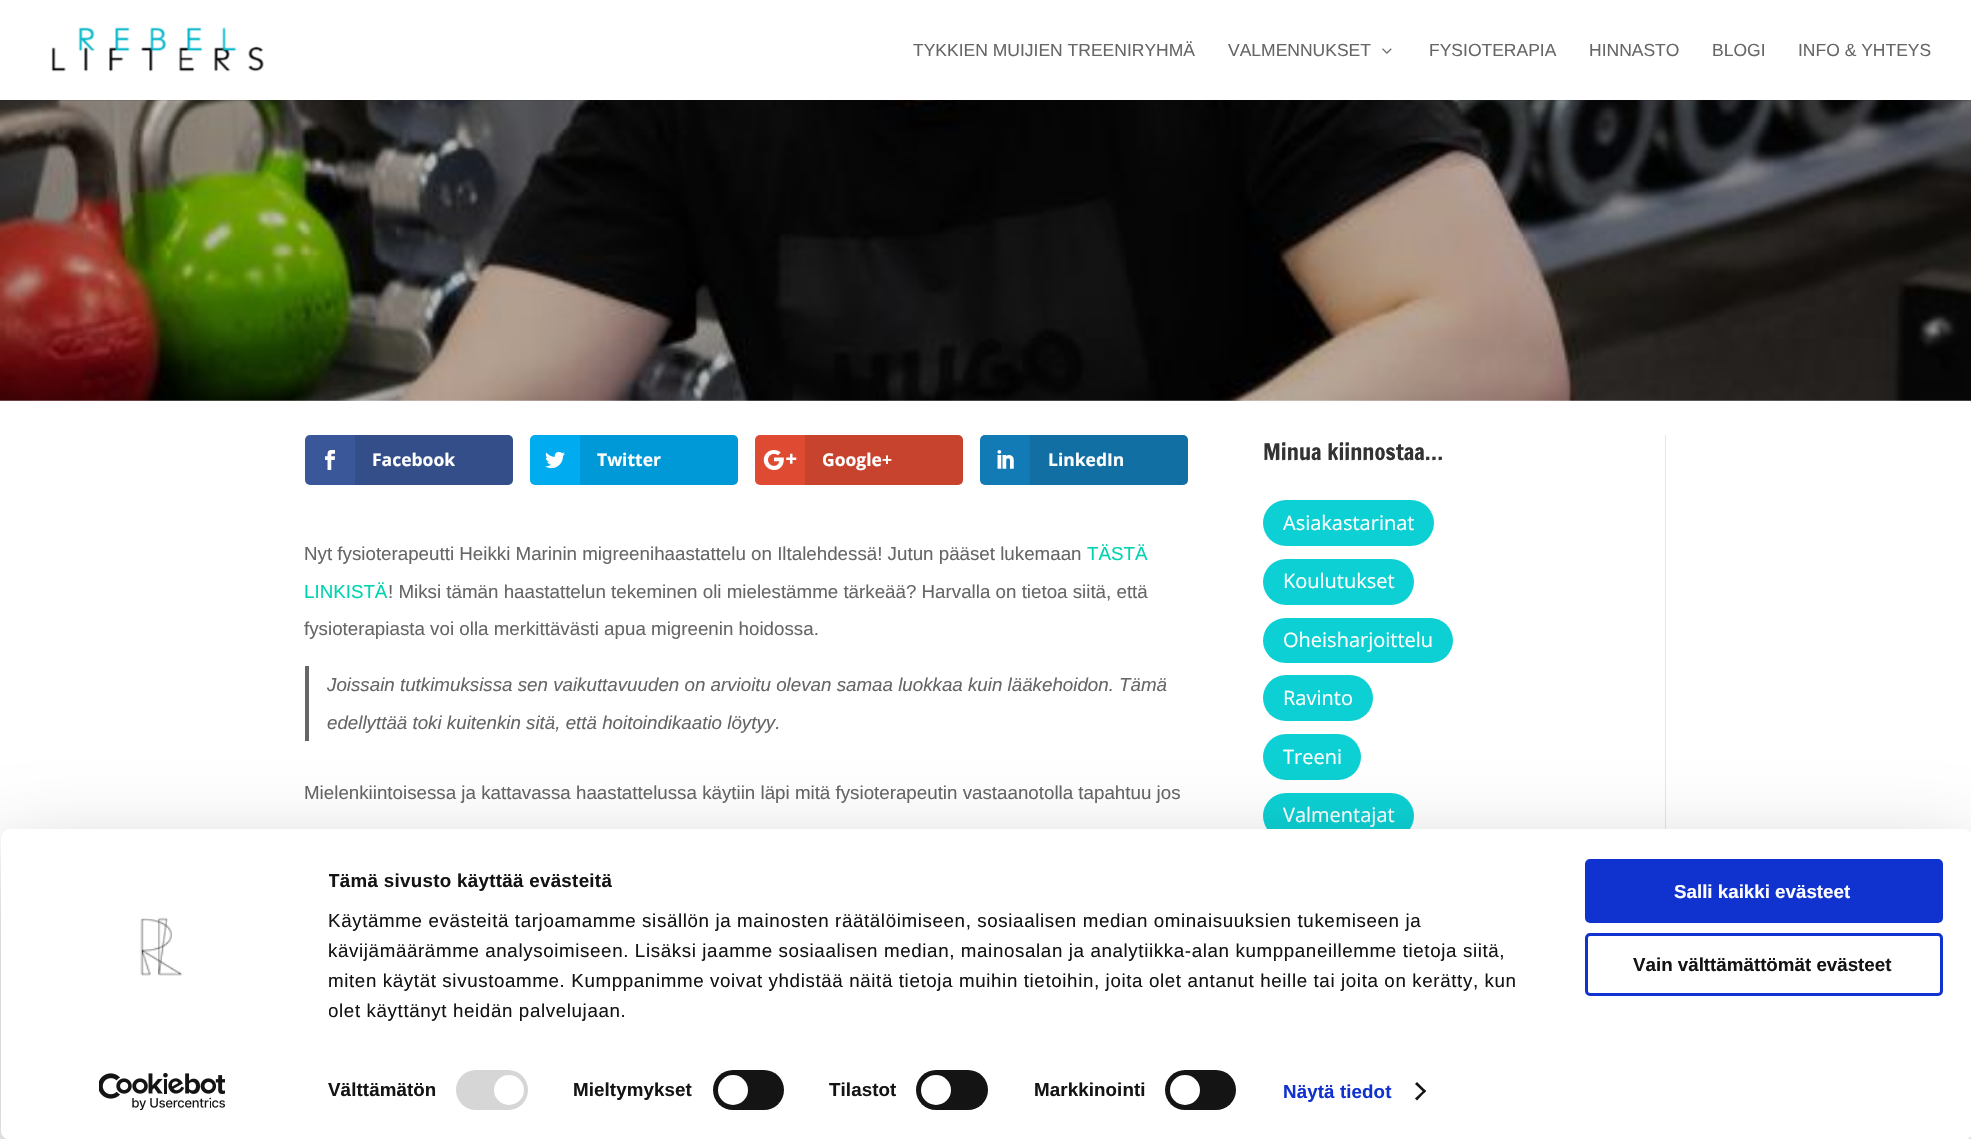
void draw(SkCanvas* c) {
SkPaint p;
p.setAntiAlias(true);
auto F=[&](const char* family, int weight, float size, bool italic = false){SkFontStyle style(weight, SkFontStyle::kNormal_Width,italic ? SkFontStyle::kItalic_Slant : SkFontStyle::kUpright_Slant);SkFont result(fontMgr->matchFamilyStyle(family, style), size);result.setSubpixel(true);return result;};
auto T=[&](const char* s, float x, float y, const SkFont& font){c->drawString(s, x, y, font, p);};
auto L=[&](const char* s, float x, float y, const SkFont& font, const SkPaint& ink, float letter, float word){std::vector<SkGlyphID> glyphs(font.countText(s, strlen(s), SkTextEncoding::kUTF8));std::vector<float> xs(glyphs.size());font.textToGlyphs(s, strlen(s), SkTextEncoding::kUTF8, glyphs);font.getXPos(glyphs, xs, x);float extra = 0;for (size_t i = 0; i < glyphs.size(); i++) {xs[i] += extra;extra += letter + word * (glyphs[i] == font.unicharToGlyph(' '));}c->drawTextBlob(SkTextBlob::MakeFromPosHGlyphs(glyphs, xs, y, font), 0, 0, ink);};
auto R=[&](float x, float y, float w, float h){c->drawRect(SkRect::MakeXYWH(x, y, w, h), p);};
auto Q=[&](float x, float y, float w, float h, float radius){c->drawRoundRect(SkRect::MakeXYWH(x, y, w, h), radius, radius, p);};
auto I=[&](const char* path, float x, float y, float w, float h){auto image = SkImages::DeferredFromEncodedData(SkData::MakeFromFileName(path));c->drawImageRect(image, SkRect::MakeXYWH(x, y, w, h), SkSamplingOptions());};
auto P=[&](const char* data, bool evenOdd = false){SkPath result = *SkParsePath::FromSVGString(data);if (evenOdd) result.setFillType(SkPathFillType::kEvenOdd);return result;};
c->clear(0xffffffff);
I("3.png",0,100,1971,301);
p.setColor(0x1a000000);
R(0,100,1971,1);
I("1.png",51,27,213,45);
auto f1 = F("Liberation Sans",400,17.5);
p.setColor(0xff666666);
T("TYKKIEN MUIJIEN TREENIRYHMÄ",913,56,f1);
T("VALMENNUKSET",1228,56,f1);
I("2.png",1382,48,10,6);
T("FYSIOTERAPIA",1429,56,f1);
T("HINNASTO",1589,56,f1);
T("BLOGI",1712,56,f1);
T("INFO & YHTEYS",1798,56,f1);
p.setColor(0xff3a579a);
Q(305,435,208,50,5);
I("4.png",325,450,10,20);
p.setColor(0x1a000000);
c->drawPath(P("M355 435h153c3 0 5 2 5 5v40c0 3-2 5-5 5h-153z"),p);
auto f2 = F("Open Sans",700,17.5);
p.setColor(0xffffffff);
T("Facebook",372,466,f2);
p.setColor(0xff00abf0);
Q(530,435,208,50,5);
I("5.png",545,451,20,18);
p.setColor(0x1a000000);
c->drawPath(P("M580 435h153c3 0 5 2 5 5v40c0 3-2 5-5 5h-153z"),p);
p.setColor(0xffffffff);
T("Twitter",597,466,f2);
p.setColor(0xffdf4a32);
Q(755,435,208,50,5);
I("6.png",763,450,34,20);
p.setColor(0x1a000000);
c->drawPath(P("M805 435h153c3 0 5 2 5 5v40c0 3-2 5-5 5h-153z"),p);
p.setColor(0xffffffff);
T("Google+",822,466,f2);
p.setColor(0xff127bb6);
Q(980,435,208,50,5);
I("7.png",997,450,17,19);
p.setColor(0x1a000000);
c->drawPath(P("M1030 435h153c3 0 5 2 5 5v40c0 3-2 5-5 5h-153z"),p);
p.setColor(0xffffffff);
T("LinkedIn",1048,466,f2);
auto f3 = F("Liberation Sans",400,18.75);
p.setColor(0xff666666);
T("Nyt fysioterapeutti Heikki Marinin migreenihaastattelu on Iltalehdessä! Jutun pääset lukemaan",304,560,f3);
p.setColor(0xff00d3b0);
T("TÄSTÄ",1087,560,f3);
T("LINKISTÄ",304,598,f3);
p.setColor(0xff666666);
T("! Miksi tämän haastattelun tekeminen oli mielestämme tärkeää? Harvalla on tietoa siitä, että",388,598,f3);
T("fysioterapiasta voi olla merkittävästi apua migreenin hoidossa.",304,635,f3);
R(305,666,4,75);
auto f4 = F("Liberation Sans",400,18.75,true);
T("Joissain tutkimuksissa sen vaikuttavuuden on arvioitu olevan samaa luokkaa kuin lääkehoidon. Tämä",327,691,f4);
T("edellyttää toki kuitenkin sitä, että hoitoindikaatio löytyy.",327,729,f4);
T("Mielenkiintoisessa ja kattavassa haastattelussa käytiin läpi mitä fysioterapeutin vastaanotolla tapahtuu jos",304,799,f3);
p.setColor(0xffe6e6e6);
R(1665,435,1,394);
auto f5 = F("Francois One",400,22.5);
p.setColor(0xff333333);
T("Minua kiinnostaa…",1263,460,f5);
p.setColor(0xff0cd0d3);
Q(1263,500,171,46,23);
auto f6 = F("Open Sans",400,20);
p.setColor(0xffffffff);
T("Asiakastarinat",1283,530,f6);
p.setColor(0xff0cd0d3);
Q(1263,559,151,46,23);
p.setColor(0xffffffff);
T("Koulutukset",1283,588,f6);
p.setColor(0xff0cd0d3);
Q(1263,618,190,45,22.5);
p.setColor(0xffffffff);
T("Oheisharjoittelu",1283,647,f6);
p.setColor(0xff0cd0d3);
Q(1263,675,110,46,23);
p.setColor(0xffffffff);
T("Ravinto",1283,705,f6);
p.setColor(0xff0cd0d3);
Q(1263,734,98,46,23);
p.setColor(0xffffffff);
T("Treeni",1283,764,f6);
p.setColor(0xff0cd0d3);
Q(1263,793,151,46,23);
p.setColor(0xffffffff);
T("Valmentajat",1283,822,f6);
c->save();
c->clipPath(P("M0 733h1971v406h-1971zm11 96h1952c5.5 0 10 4.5 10 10v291c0 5.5-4.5 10-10 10h-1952c-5.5 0-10-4.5-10-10v-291c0-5.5 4.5-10 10-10z",true),true);
p.setColor(0x4d000000);
p.setMaskFilter(SkMaskFilter::MakeBlur(kNormal_SkBlurStyle, 44));
c->drawRoundRect(SkRect::MakeXYWH(1,866,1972,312),10,10,p);
p.setMaskFilter(nullptr);
c->restore();
p.setColor(0xffffffff);
Q(1,829,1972,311,10);
I("8.png",140,917,42,59);
I("9.png",99,1073,126,37);
c->save();
c->clipRect(SkRect::MakeXYWH(329,866,1220,159));
auto f7 = F("Liberation Sans",700,18.75);
p.setColor(0xff141414);
L("Tämä sivusto käyttää evästeitä",328,887,f7,p,.3,0);
c->restore();
L("Käytämme evästeitä tarjoamamme sisällön ja mainosten räätälöimiseen, sosiaalisen median ominaisuuksien tukemiseen ja",328,927,f3,p,.62,0);
c->save();
c->clipRect(SkRect::MakeXYWH(329,866,1220,159));
L("kävijämäärämme analysoimiseen. Lisäksi jaamme sosiaalisen median, mainosalan ja analytiikka-alan kumppaneillemme tietoja siitä,",328,957,f3,p,.62,0);
c->restore();
L("miten käytät sivustoamme. Kumppanimme voivat yhdistää näitä tietoja muihin tietoihin, joita olet antanut heille tai joita on kerätty, kun",328,987,f3,p,.62,0);
c->save();
c->clipRect(SkRect::MakeXYWH(329,866,1220,159));
L("olet käyttänyt heidän palvelujaan.",328,1017,f3,p,.62,0);
c->restore();
L("Välttämätön",328,1096,f7,p,.1,0);
p.setColor(0xffd6d6d6);
Q(456,1070,72,40,20);
p.setColor(0xffffffff);
c->drawCircle(509,1090,15,p);
p.setColor(0xff141414);
L("Mieltymykset",573,1096,f7,p,.1,0);
Q(713,1070,71,40,20);
p.setColor(0xffffffff);
c->drawCircle(733,1090,15,p);
p.setColor(0xff141414);
L("Tilastot",829,1096,f7,p,.1,0);
Q(916,1070,72,40,20);
p.setColor(0xffffffff);
c->drawCircle(936,1090,15,p);
p.setColor(0xff141414);
L("Markkinointi",1034,1096,f7,p,.1,0);
Q(1165,1070,71,40,20);
p.setColor(0xffffffff);
c->drawCircle(1185,1090,15,p);
p.setColor(0xff1032cf);
L("Näytä tiedot",1283,1098,f7,p,.1,0);
p.setColor(0xff141414);
c->drawPath(P("M1417 1082l9 9l-1.5 2l-9.5-9z"),p);
c->drawPath(P("M1424.5 1089.5l1.5 1.5l-9 9.5l-2-2z"),p);
p.setColor(0xff1032cf);
c->drawRoundRect(SkRect::MakeXYWH(1586.5,860.5,355,61),3.5,3.5,p);
p.setStroke(true);
p.setStrokeWidth(3);
c->drawRoundRect(SkRect::MakeXYWH(1586.5,860.5,355,61),3.5,3.5,p);
p.setStroke(false);
p.setColor(0xffffffff);
T("Salli kaikki evästeet",1674,898,f7);
p.setStroke(true);
p.setColor(0xff1032cf);
c->drawRoundRect(SkRect::MakeXYWH(1586.5,934.5,355,60),3.5,3.5,p);
p.setStroke(false);
p.setColor(0xff141414);
T("Vain välttämättömät evästeet",1633,971,f7);
}
